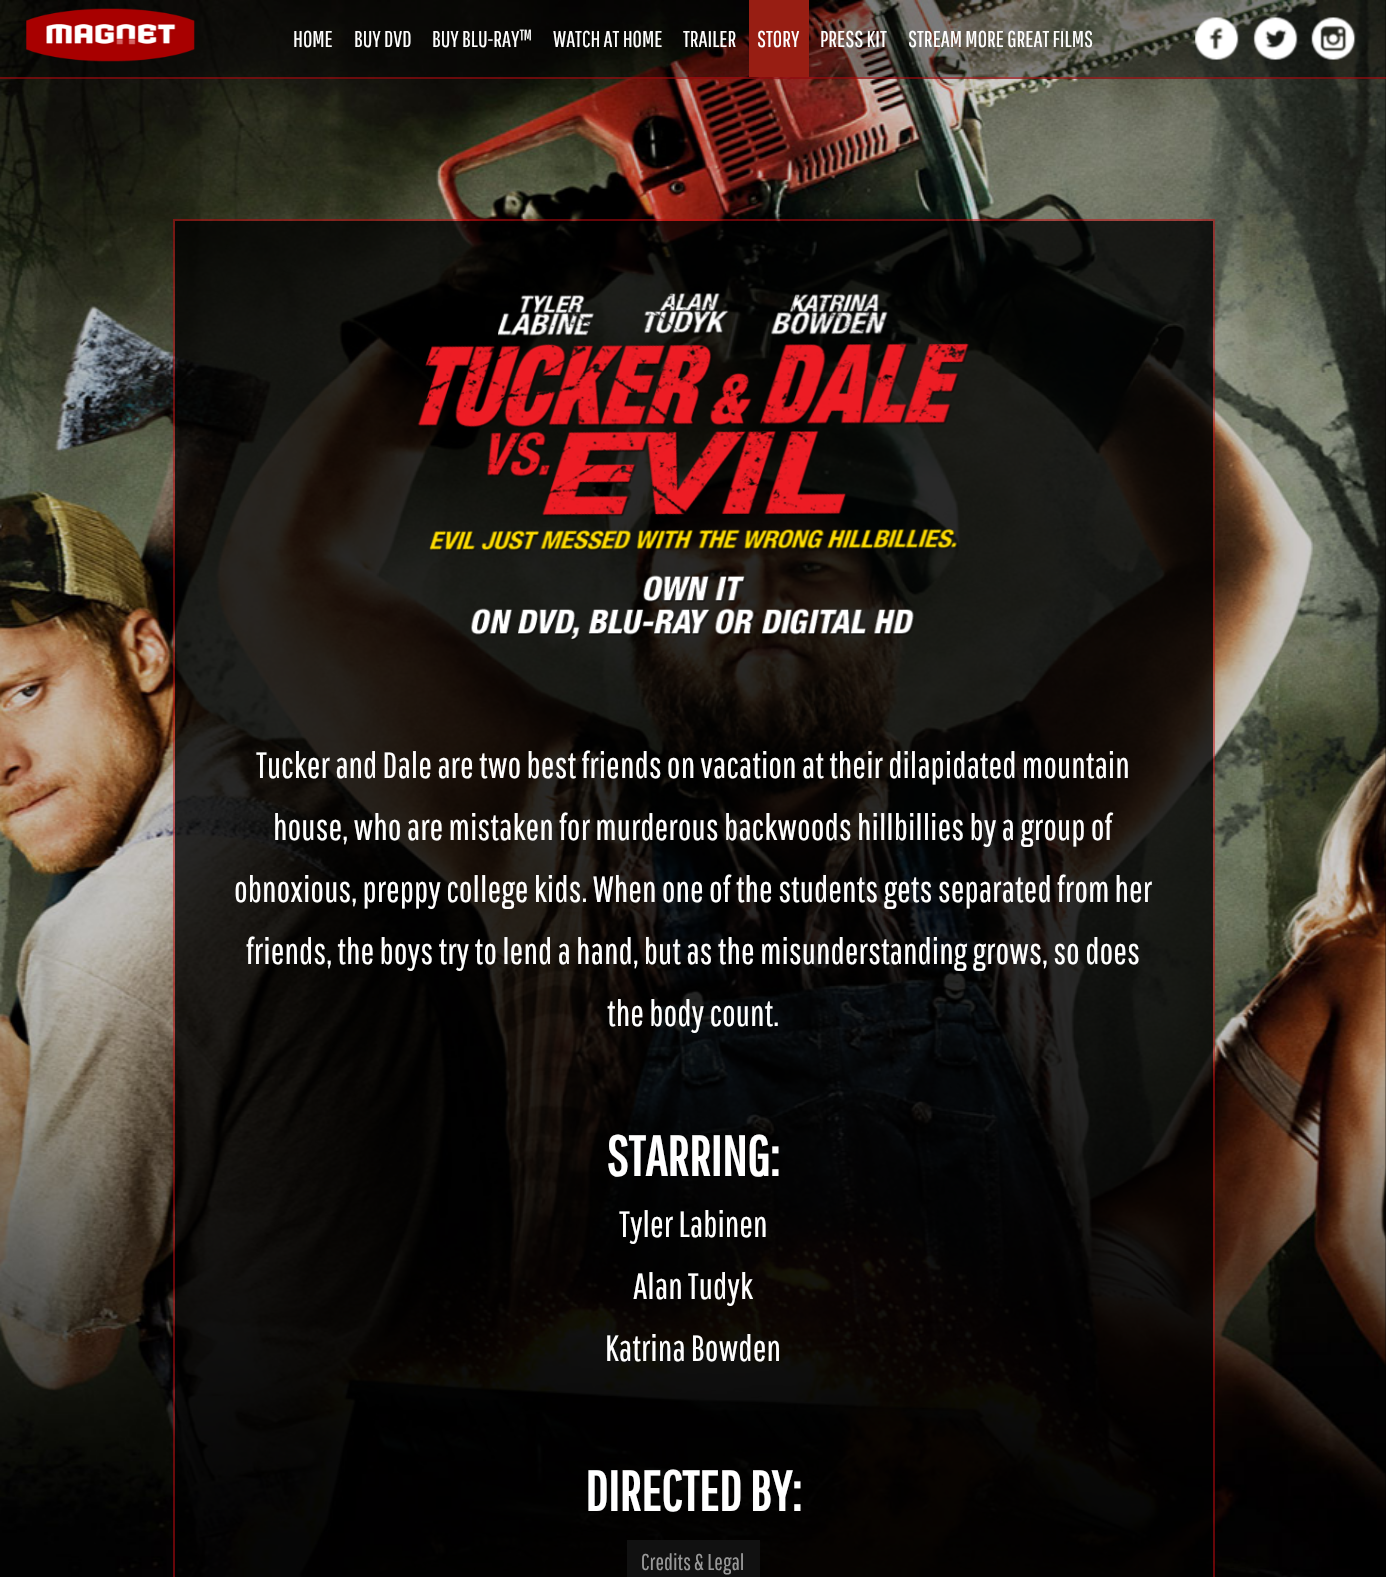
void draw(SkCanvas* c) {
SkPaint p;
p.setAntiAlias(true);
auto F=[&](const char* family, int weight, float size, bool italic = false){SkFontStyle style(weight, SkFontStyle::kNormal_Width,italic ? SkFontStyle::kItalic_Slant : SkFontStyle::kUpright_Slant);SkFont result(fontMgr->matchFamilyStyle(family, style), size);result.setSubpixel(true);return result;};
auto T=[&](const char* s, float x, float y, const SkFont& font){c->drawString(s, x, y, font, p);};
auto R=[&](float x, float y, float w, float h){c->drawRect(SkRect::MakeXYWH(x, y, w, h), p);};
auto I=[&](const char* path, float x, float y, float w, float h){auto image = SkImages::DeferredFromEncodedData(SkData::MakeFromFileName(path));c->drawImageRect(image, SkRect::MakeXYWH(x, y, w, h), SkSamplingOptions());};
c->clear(0xff000000);
I("5.png",0,0,1386,1577);
p.setColor(0x66000000);
R(0,0,1386,79);
p.setColor(0x80c90a10);
R(0,77,1386,2);
I("1.png",26,8,169,54);
auto f1 = F("Pathway Gothic One",400,22.75);
p.setColor(0xffffffff);
T("HOME",293,47,f1);
T("BUY DVD",354,47,f1);
T("BUY BLU-RAY™",432,47,f1);
T("WATCH AT HOME",553,47,f1);
T("TRAILER",683,47,f1);
p.setColor(0xff981e13);
R(749,0,60,77);
p.setColor(0xffffffff);
T("STORY",757,47,f1);
T("PRESS KIT",820,47,f1);
T("STREAM MORE GREAT FILMS",908,47,f1);
I("2.png",1195,17,44,43);
I("3.png",1253,17,45,43);
I("4.png",1311,17,45,43);
p.setStroke(true);
p.setStrokeWidth(2);
p.setColor(0x80c90a10);
c->drawRect(SkRect::MakeXYWH(174,220,1040,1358),p);
p.setStroke(false);
p.setColor(0xcc000000);
R(175,221,1038,1356);
I("6.png",417,293,552,348);
auto f2 = F("Pathway Gothic One",400,36.4);
p.setColor(0xffffffff);
T("Tucker and Dale are two best friends on vacation at their dilapidated mountain",256,778,f2);
T("house, who are mistaken for murderous backwoods hillbillies by a group of",273,840,f2);
T("obnoxious, preppy college kids. When one of the students gets separated from her",234,902,f2);
T("friends, the boys try to lend a hand, but as the misunderstanding grows, so does",246,964,f2);
T("the body count.",607,1026,f2);
auto f3 = F("Pathway Gothic One",700,56);
T("STARRING:",606,1176,f3);
T("Tyler Labinen",619,1237,f2);
T("Alan Tudyk",633,1299,f2);
T("Katrina Bowden",605,1361,f2);
T("DIRECTED BY:",585,1511,f3);
p.setColor(0xff111111);
R(627,1540,133,37);
p.setColor(0xff999999);
T("Credits & Legal",641,1570,f1);
}
